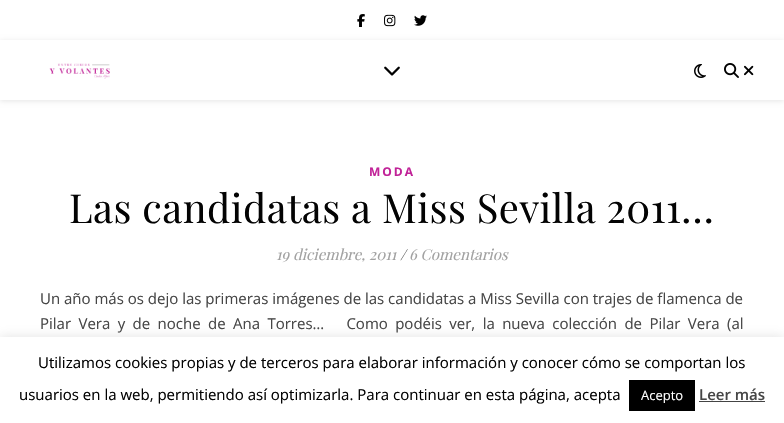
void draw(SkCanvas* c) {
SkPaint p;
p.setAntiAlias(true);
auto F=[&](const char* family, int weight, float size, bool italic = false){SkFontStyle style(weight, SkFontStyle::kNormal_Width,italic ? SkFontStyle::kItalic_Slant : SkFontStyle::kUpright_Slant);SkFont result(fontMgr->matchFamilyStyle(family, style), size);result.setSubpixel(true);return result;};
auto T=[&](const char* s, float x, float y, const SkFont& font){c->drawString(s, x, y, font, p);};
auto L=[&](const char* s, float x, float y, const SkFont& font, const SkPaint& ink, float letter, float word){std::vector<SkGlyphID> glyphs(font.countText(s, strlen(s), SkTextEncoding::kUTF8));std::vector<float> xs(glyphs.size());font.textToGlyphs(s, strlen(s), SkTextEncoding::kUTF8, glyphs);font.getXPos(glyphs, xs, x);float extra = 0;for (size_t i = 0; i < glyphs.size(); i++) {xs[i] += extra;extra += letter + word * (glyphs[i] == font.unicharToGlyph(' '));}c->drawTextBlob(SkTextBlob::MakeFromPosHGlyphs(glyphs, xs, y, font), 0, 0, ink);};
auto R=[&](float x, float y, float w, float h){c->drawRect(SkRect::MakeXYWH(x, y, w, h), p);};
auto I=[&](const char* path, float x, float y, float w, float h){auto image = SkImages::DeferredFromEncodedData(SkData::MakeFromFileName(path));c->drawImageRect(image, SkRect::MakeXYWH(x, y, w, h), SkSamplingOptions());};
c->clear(0xffffffff);
I("1.png",357,14,8,13);
I("2.png",384,14,12,13);
I("3.png",414,15,13,11);
p.setColor(0x1a000000);
p.setMaskFilter(SkMaskFilter::MakeBlur(kNormal_SkBlurStyle, 2.5));
c->drawRect(SkRect::MakeXYWH(0,41,784,60),p);
p.setMaskFilter(nullptr);
p.setColor(0xffffffff);
R(0,40,784,60);
I("4.png",49,63,61,16);
I("5.png",384,66,16,10);
I("6.png",694,64,12,14);
I("7.png",724,63,15,15);
I("8.png",744,65,10,11);
auto f1 = F("Open Sans",700,12);
p.setColor(0xffc12398);
L("MODA",369,176,f1,p,2,0);
auto f2 = F("Playfair Display",400,40);
p.setColor(0xff030303);
L("Las candidatas a Miss Sevilla 2011…",69,223,f2,p,.5,0);
auto f3 = F("Playfair Display",400,15,true);
p.setColor(0xffa1a1a1);
T("19 diciembre, 2011",276,260,f3);
p.setColor(0xff464646);
T("/",400,260,f3);
p.setColor(0xffa1a1a1);
T("6 Comentarios",409,260,f3);
auto f4 = F("Open Sans",400,15);
p.setColor(0xff464646);
T("Un año más os dejo las primeras imágenes de las candidatas a Miss Sevilla con trajes de flamenca de",40,304,f4);
L("Pilar Vera y de noche de Ana Torres…   Como podéis ver, la nueva colección de Pilar Vera (al",40,329,f4,p,0,3.5);
p.setColor(0x4dacabab);
p.setMaskFilter(SkMaskFilter::MakeBlur(kNormal_SkBlurStyle, 5));
c->drawRect(SkRect::MakeXYWH(0,336,784,86),p);
p.setMaskFilter(nullptr);
p.setColor(0xffffffff);
R(0,337,784,86);
p.setColor(0xff030303);
T("Utilizamos cookies propias y de terceros para elaborar información y conocer cómo se comportan los",38,368,f4);
T("usuarios en la web, permitiendo así optimizarla. Para continuar en esta página, acepta",19,400,f4);
p.setColor(0xff000000);
R(629,380,66,31);
auto f5 = F("Open Sans",400,13);
p.setColor(0xffffffff);
T("Acepto",641,400,f5);
auto f6 = F("Open Sans",600,15);
p.setColor(0xff464646);
T("Leer más",699,400,f6);
p.setColor(0xff444444);
R(699,401,66,1);
}
